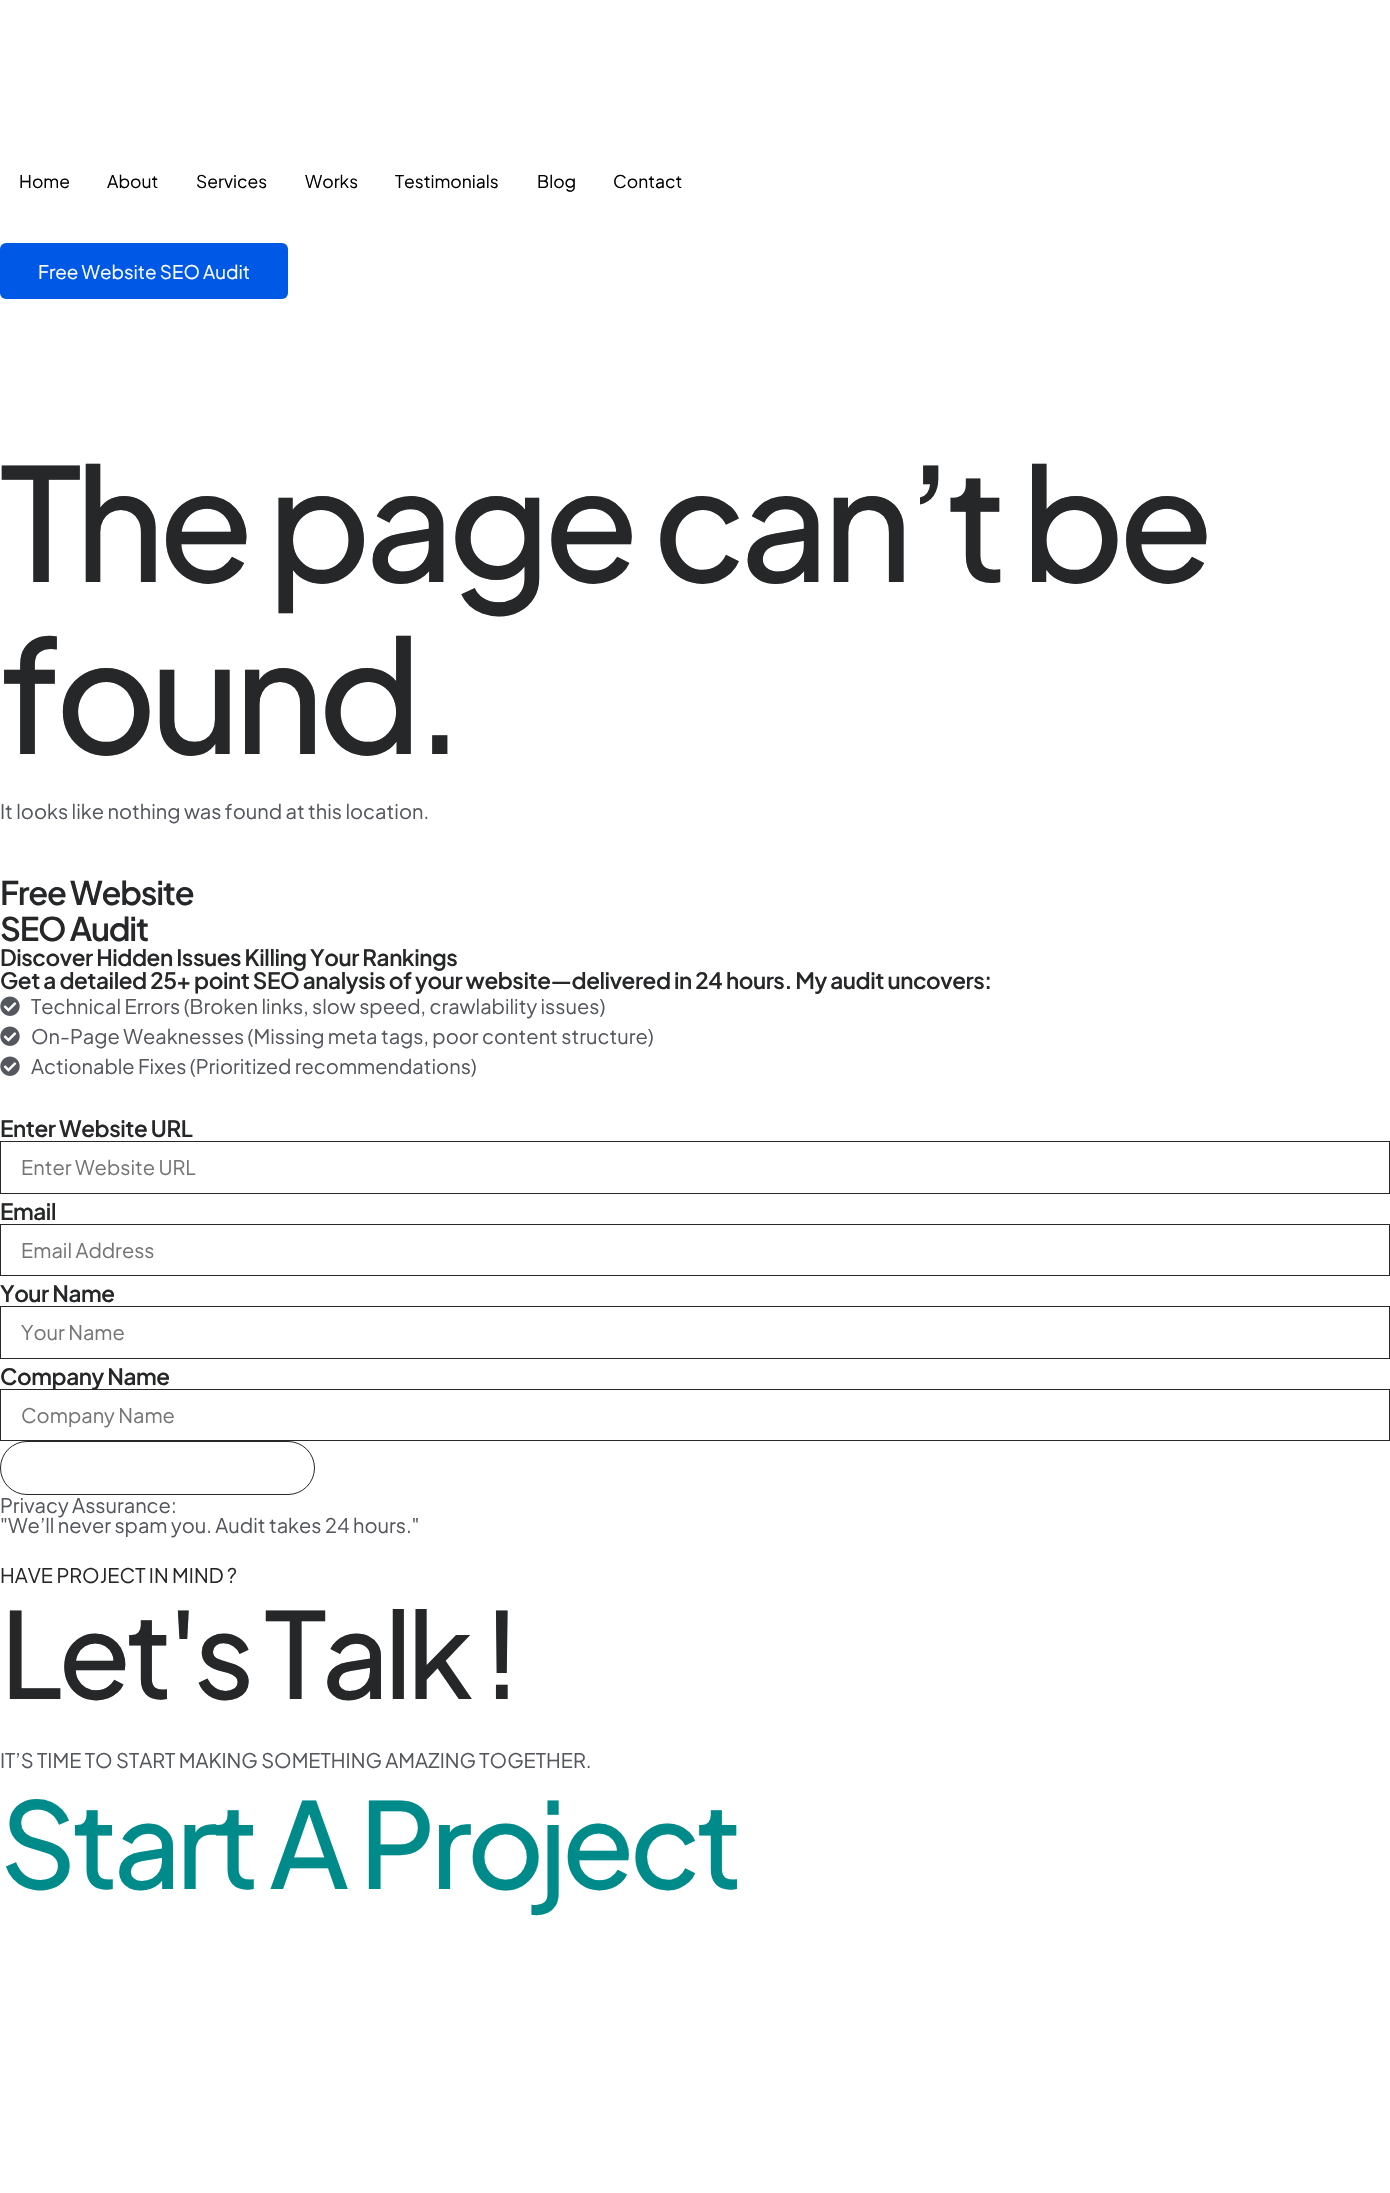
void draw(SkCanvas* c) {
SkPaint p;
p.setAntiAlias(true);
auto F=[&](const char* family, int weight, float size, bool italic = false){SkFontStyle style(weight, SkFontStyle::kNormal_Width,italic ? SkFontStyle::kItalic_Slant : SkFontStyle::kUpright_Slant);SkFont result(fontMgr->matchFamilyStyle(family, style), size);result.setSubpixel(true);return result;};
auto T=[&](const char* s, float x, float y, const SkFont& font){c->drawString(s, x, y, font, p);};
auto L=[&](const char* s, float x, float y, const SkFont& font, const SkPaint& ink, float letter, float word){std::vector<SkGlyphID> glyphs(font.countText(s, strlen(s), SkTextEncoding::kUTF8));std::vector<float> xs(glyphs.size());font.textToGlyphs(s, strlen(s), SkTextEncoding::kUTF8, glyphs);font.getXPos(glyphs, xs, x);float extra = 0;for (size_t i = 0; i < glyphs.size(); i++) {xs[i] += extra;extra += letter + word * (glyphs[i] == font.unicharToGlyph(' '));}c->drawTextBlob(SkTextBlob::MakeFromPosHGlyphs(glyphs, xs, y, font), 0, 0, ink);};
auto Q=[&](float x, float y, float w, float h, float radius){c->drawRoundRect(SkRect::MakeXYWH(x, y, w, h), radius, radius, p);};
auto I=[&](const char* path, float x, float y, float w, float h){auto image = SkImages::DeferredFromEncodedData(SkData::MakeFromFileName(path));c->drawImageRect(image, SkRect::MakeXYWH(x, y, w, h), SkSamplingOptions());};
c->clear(0xffffffff);
auto f1 = F("Plus Jakarta Sans",400,17.5);
p.setColor(0xff000000);
T("Home",19,188,f1);
T("About",107,188,f1);
T("Services",196,188,f1);
T("Works",305,188,f1);
T("Testimonials",395,188,f1);
T("Blog",537,188,f1);
T("Contact",613,188,f1);
p.setColor(0xff0058e6);
Q(0,243,288,56,6);
auto f2 = F("Plus Jakarta Sans",400,18.75);
p.setColor(0xffffffff);
T("Free Website SEO Audit",38,279,f2);
auto f3 = F("Plus Jakarta Sans",500,156.25);
p.setColor(0xff262729);
L("The page can’t be",0,582,f3,p,-7,0);
L("found.",0,754,f3,p,-7,0);
auto f4 = F("Plus Jakarta Sans",400,20);
p.setColor(0xff54575d);
T("It looks like nothing was found at this location.",0,819,f4);
auto f5 = F("Plus Jakarta Sans",600,32.5);
p.setColor(0xff262729);
L("Free Website",0,905,f5,p,-1.25,0);
L("SEO Audit",0,941,f5,p,-1.25,0);
auto f6 = F("Plus Jakarta Sans",600,22.5);
L("Discover Hidden Issues Killing Your Rankings",0,966,f6,p,-.45,0);
L("Get a detailed 25+ point SEO analysis of your website—delivered in 24 hours. My audit uncovers:",0,989,f6,p,-.45,0);
I("1.png",0,996,20,20);
p.setColor(0xff54575d);
T("Technical Errors (Broken links, slow speed, crawlability issues)",31,1014,f4);
I("1.png",0,1026,20,20);
T("On-Page Weaknesses (Missing meta tags, poor content structure)",31,1044,f4);
I("1.png",0,1056,20,20);
T("Actionable Fixes (Prioritized recommendations)",31,1074,f4);
p.setColor(0xff262729);
L("Enter Website URL",0,1137,f6,p,-.45,0);
p.setStroke(true);
p.setStrokeWidth(1);
c->drawRect(SkRect::MakeXYWH(.5,1141.5,1389,52),p);
p.setStroke(false);
p.setColor(0xff757575);
T("Enter Website URL",21,1175,f4);
p.setColor(0xff262729);
L("Email",0,1220,f6,p,-.45,0);
p.setStroke(true);
c->drawRect(SkRect::MakeXYWH(.5,1224.5,1389,51),p);
p.setStroke(false);
p.setColor(0xff757575);
T("Email Address",21,1258,f4);
p.setColor(0xff262729);
L("Your Name",0,1302,f6,p,-.45,0);
p.setStroke(true);
c->drawRect(SkRect::MakeXYWH(.5,1306.5,1389,52),p);
p.setStroke(false);
p.setColor(0xff757575);
T("Your Name",21,1340,f4);
p.setColor(0xff262729);
L("Company Name",0,1385,f6,p,-.45,0);
p.setStroke(true);
c->drawRect(SkRect::MakeXYWH(.5,1389.5,1389,51),p);
p.setStroke(false);
p.setColor(0xff757575);
T("Company Name",21,1423,f4);
p.setStroke(true);
p.setColor(0xff262729);
c->drawRoundRect(SkRect::MakeXYWH(.5,1441.5,314,53),26.5,26.5,p);
p.setStroke(false);
p.setColor(0xff54575d);
T("Privacy Assurance:",0,1513,f4);
T("\"We’ll never spam you. Audit takes 24 hours.\"",0,1533,f4);
p.setColor(0xff262729);
T("HAVE PROJECT IN MIND ?",0,1583,f4);
auto f7 = F("Plus Jakarta Sans",500,118.75);
L("Let's Talk !",0,1699,f7,p,-5.3,0);
p.setColor(0xff54575d);
T("IT’S TIME TO START MAKING SOMETHING AMAZING TOGETHER.",0,1768,f4);
p.setColor(0xff008b8b);
L("Start A Project",0,1889,f7,p,-5.3,0);
}
